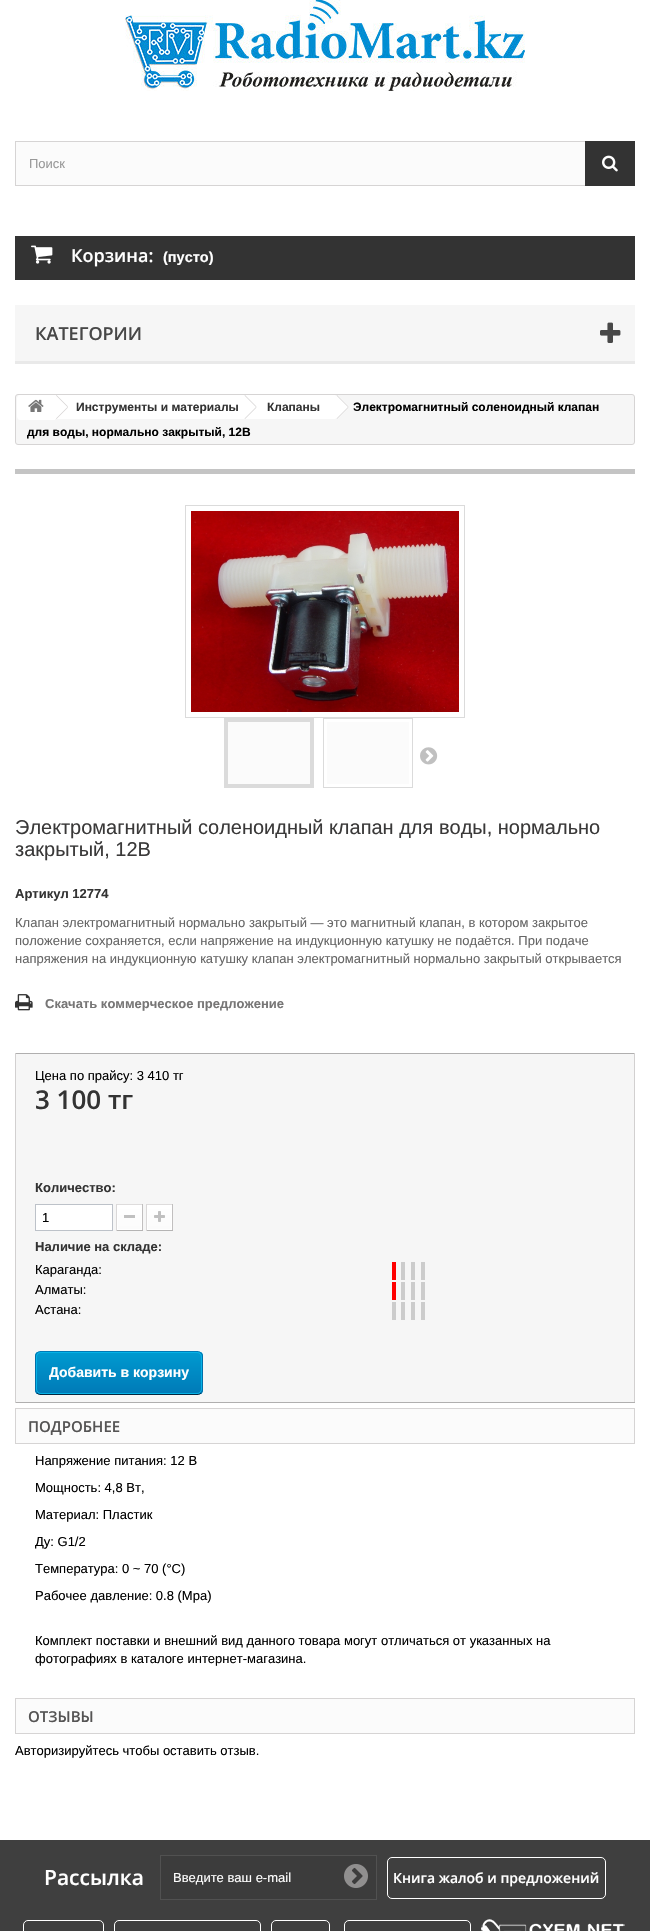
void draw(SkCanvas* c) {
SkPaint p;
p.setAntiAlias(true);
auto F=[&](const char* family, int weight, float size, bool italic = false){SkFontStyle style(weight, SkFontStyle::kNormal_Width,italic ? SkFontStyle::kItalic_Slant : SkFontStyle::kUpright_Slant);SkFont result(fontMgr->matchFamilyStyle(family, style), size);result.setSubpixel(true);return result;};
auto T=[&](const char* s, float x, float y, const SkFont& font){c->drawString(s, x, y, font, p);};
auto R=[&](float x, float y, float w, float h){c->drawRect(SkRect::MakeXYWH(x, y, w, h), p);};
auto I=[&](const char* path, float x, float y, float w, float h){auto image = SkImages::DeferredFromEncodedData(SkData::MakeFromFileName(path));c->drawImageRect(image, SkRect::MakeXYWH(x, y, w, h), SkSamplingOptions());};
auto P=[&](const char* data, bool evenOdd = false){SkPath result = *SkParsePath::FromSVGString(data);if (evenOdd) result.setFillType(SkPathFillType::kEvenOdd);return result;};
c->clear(0xffffffff);
I("1.png",125,0,400,91);
p.setColor(0xfffbfbfb);
R(16,142,569,43);
p.setStroke(true);
p.setStrokeWidth(1);
p.setColor(0xffd6d4d4);
c->drawRect(SkRect::MakeXYWH(15.5,141.5,619,44),p);
auto f1 = F("Liberation Sans",400,13);
p.setStroke(false);
p.setColor(0xff999999);
T("Поиск",29,168,f1);
p.setColor(0xff333333);
R(585,141,50,45);
I("2.png",602,155,16,17);
R(15,236,620,44);
I("3.png",31,245,22,19);
auto f2 = F("Open Sans",600,18);
p.setColor(0xffffffff);
T("Корзина:",71,262,f2);
auto f3 = F("Liberation Sans",700,14.5);
T("(пусто)",163,262,f3);
p.setColor(0xfff6f6f6);
R(15,305,620,56);
p.setColor(0xffe9e9e9);
R(15,361,620,3);
p.setColor(0xff484848);
T("КАТЕГОРИИ",35,340,f2);
I("4.png",600,322,21,21);
p.setColor(0xfff6f6f6);
c->drawRoundRect(SkRect::MakeXYWH(15.5,394.5,619,50),2.5,2.5,p);
p.setStroke(true);
p.setColor(0xffd6d4d4);
c->drawRoundRect(SkRect::MakeXYWH(15.5,394.5,619,50),2.5,2.5,p);
p.setStroke(false);
p.setColor(0xffffffff);
c->drawPath(P("M20 395h35v25h-35c-1.5 0-3-1.5-3-3v-19c0-1.5 1.5-3 3-3z"),p);
I("5.png",28,399,16,13);
R(55,395,190,24);
p.setColor(0xffd6d4d4);
c->drawPath(P("M56.5 395l11.5 11.5l-.5 .5l-11.5-11.5zm11 12l.5 .5l-11.5 11.5l-.5-.5z"),p);
auto f4 = F("Liberation Sans",700,12);
p.setColor(0xff333333);
T("Инструменты и материалы",76,411,f4);
p.setColor(0xffffffff);
c->drawPath(P("M256 395.5l10 10c.5 1 .5 2 0 3l-10 10c-1 .5-2 .5-3 0l-10-10c-.5-1-.5-2 0-3l10-10c1-.5 2-.5 3 0z"),p);
R(245,395,90,24);
p.setColor(0xffd6d4d4);
c->drawPath(P("M245 395l11.5 11.5l-.5 .5l-11.5-11.5zm11 12l.5 .5l-11.5 11.5l-.5-.5z"),p);
p.setColor(0xff333333);
T("Клапаны",267,411,f4);
p.setColor(0xffffffff);
c->drawPath(P("M338 395.5l10 10c.5 1 .5 2 0 3l-10 10c-1 .5-2 .5-3 0l-10-10c-.5-1-.5-2 0-3l10-10c1-.5 2-.5 3 0z"),p);
p.setColor(0xffd6d4d4);
c->drawPath(P("M337 395l11.5 11.5l-.5 .5l-11.5-11.5zm11 12l.5 .5l-11.5 11.5l-.5-.5z"),p);
p.setColor(0xff000000);
T("Электромагнитный соленоидный клапан",353,411,f4);
T("для воды, нормально закрытый, 12В",27,436,f4);
p.setColor(0xffc4c4c4);
R(15,469,620,5);
p.setStroke(true);
p.setColor(0xffdbdbdb);
c->drawRect(SkRect::MakeXYWH(185.5,505.5,279,212),p);
I("6.png",191,511,268,201);
c->drawRect(SkRect::MakeXYWH(224.5,718.5,89,69),p);
p.setStroke(false);
p.setColor(0xfffbfbfb);
c->drawRect(SkRect::MakeXYWH(226.5,720.5,85,65),p);
p.setStroke(true);
p.setStrokeWidth(3);
p.setColor(0xffdbdbdb);
c->drawRect(SkRect::MakeXYWH(226.5,720.5,85,65),p);
p.setStrokeWidth(1);
c->drawRect(SkRect::MakeXYWH(323.5,718.5,89,69),p);
p.setStroke(false);
p.setColor(0xfffbfbfb);
R(327,722,82,62);
I("7.png",420,747,18,18);
auto f5 = F("Liberation Sans",400,20);
p.setColor(0xff3a3939);
T("Электромагнитный соленоидный клапан для воды, нормально",15,834,f5);
T("закрытый, 12В",15,856,f5);
auto f6 = F("Liberation Sans",700,13);
p.setColor(0xff333333);
T("Артикул 12774",15,898,f6);
p.setColor(0xff666666);
T("Клапан электромагнитный нормально закрытый — это магнитный клапан, в котором закрытое",15,927,f1);
T("положение сохраняется, если напряжение на индукционную катушку не подаётся. При подаче",15,945,f1);
T("напряжения на индукционную катушку клапан электромагнитный нормально закрытый открывается",15,963,f1);
I("8.png",15,994,18,17);
p.setColor(0xff777676);
T("Скачать коммерческое предложение",45,1008,f6);
p.setColor(0xfff6f6f6);
R(16,1054,618,348);
p.setColor(0xffb0afaf);
R(15,1053,620,1);
p.setColor(0xffd2d0d0);
R(634,1053,1,350);
p.setColor(0xffb0afaf);
R(15,1402,620,1);
p.setColor(0xffd2d0d0);
R(15,1053,1,350);
p.setColor(0xff000000);
T("Цена по прайсу: 3 410 тг",35,1080,f1);
auto f7 = F("Open Sans",600,26);
p.setColor(0xff333333);
T("3 100 тг",35,1109,f7);
T("Количество:",35,1192,f6);
p.setColor(0xffffffff);
c->drawRect(SkRect::MakeXYWH(35.5,1204.5,77,26),p);
p.setStroke(true);
p.setColor(0xffbdc2c9);
c->drawRect(SkRect::MakeXYWH(35.5,1204.5,77,26),p);
p.setStroke(false);
p.setColor(0xff000000);
T("1",42,1222,f1);
p.setColor(0xffdedcdc);
R(116,1204,27,1);
p.setColor(0xffc1bfbf);
R(142,1204,1,27);
p.setColor(0xffb5b4b4);
R(116,1230,27,1);
p.setColor(0xffdad8d8);
R(116,1204,1,27);
{
const SkColor colors[] = {0xffffffff,0xfffbfbfb};
const float stops[] = {0,1};
const SkPoint ends[] = {{130,1206}, {130,1229}};
p.setShader(SkGradientShader::MakeLinear(ends, colors, stops, 2, SkTileMode::kClamp));
p.setAlpha(255);
}
R(118,1206,23,23);
p.setStroke(true);
p.setShader(nullptr);
p.setColor(0xffffffff);
c->drawRect(SkRect::MakeXYWH(117.5,1205.5,24,24),p);
p.setStroke(false);
p.setColor(0xffc0c0c0);
R(124,1215,11,3);
p.setColor(0xffdedcdc);
R(146,1204,27,1);
p.setColor(0xffc1bfbf);
R(172,1204,1,27);
p.setColor(0xffb5b4b4);
R(146,1230,27,1);
p.setColor(0xffdad8d8);
R(146,1204,1,27);
{
const SkColor colors[] = {0xffffffff,0xfffbfbfb};
const float stops[] = {0,1};
const SkPoint ends[] = {{160,1206}, {160,1229}};
p.setShader(SkGradientShader::MakeLinear(ends, colors, stops, 2, SkTileMode::kClamp));
p.setAlpha(255);
}
R(148,1206,23,23);
p.setStroke(true);
p.setShader(nullptr);
p.setColor(0xffffffff);
c->drawRect(SkRect::MakeXYWH(147.5,1205.5,24,24),p);
I("9.png",154,1211,11,11);
p.setStroke(false);
p.setColor(0xff333333);
T("Наличие на складе:",35,1251,f6);
p.setColor(0xff000000);
T("Караганда:",35,1274,f1);
p.setColor(0xffff0000);
R(392,1262,4,18);
p.setColor(0xffcccccc);
R(401,1262,4,18);
R(411,1262,4,18);
R(421,1262,4,18);
p.setColor(0xff000000);
T("Алматы:",35,1294,f1);
p.setColor(0xffff0000);
R(392,1282,4,18);
p.setColor(0xffcccccc);
R(401,1282,4,18);
R(411,1282,4,18);
R(421,1282,4,18);
p.setColor(0xff000000);
T("Астана:",35,1314,f1);
p.setColor(0xffcccccc);
R(392,1302,4,18);
R(401,1302,4,18);
R(411,1302,4,18);
R(421,1302,4,18);
c->save();
c->clipPath(P("M40 1351h158c3 0 5 2 5 5v34c0 3-2 5-5 5h-158c-3 0-5-2-5-5v-34c0-3 2-5 5-5z"),true);
{
const SkColor colors[] = {0xff009ad0,0xff007ab7};
const float stops[] = {0,1};
const SkPoint ends[] = {{119,1352}, {119,1394}};
p.setShader(SkGradientShader::MakeLinear(ends, colors, stops, 2, SkTileMode::kClamp));
p.setAlpha(255);
}
R(35,1352,168,42);
c->restore();
p.setStroke(true);
p.setShader(nullptr);
p.setColor(0xff0079b6);
c->drawPath(P("M37 1353c.5-1 2-1.5 3-1.5h158c1 0 2.5 .5 3 1.5"),p);
p.setColor(0xff006fa8);
c->drawPath(P("M201 1353c1 .5 1.5 2 1.5 3v34c0 1-.5 2.5-1.5 3"),p);
p.setColor(0xff012740);
c->drawPath(P("M201 1393c-.5 1-2 1.5-3 1.5h-158c-1 0-2.5-.5-3-1.5"),p);
p.setColor(0xff006fa8);
c->drawPath(P("M37 1393c-1-.5-1.5-2-1.5-3v-34c0-1 .5-2.5 1.5-3"),p);
p.setColor(0xff06b2e6);
c->drawRoundRect(SkRect::MakeXYWH(36.5,1352.5,165,41),4.5,4.5,p);
auto f8 = F("Liberation Sans",700,14);
p.setStroke(false);
p.setColor(0xffffffff);
T("Добавить в корзину",49,1377,f8);
p.setColor(0xfffbfbfb);
c->drawRect(SkRect::MakeXYWH(15.5,1408.5,619,35),p);
p.setStroke(true);
p.setColor(0xffd6d4d4);
c->drawRect(SkRect::MakeXYWH(15.5,1408.5,619,35),p);
auto f9 = F("Open Sans",600,15);
p.setStroke(false);
p.setColor(0xff555454);
T("ПОДРОБНЕЕ",28,1432,f9);
p.setColor(0xff000000);
T("Напряжение питания: 12 В",35,1465,f1);
T("Мощность: 4,8 Вт,",35,1492,f1);
T("Материал: Пластик",35,1519,f1);
T("Ду: G1/2",35,1546,f1);
T("Температура: 0 ~ 70 (°C)",35,1573,f1);
T("Рабочее давление: 0.8 (Mpa)",35,1600,f1);
T("Комплект поставки и внешний вид данного товара могут отличаться от указанных на",35,1645,f1);
T("фотографиях в каталоге интернет-магазина.",35,1663,f1);
p.setColor(0xfffbfbfb);
c->drawRect(SkRect::MakeXYWH(15.5,1698.5,619,35),p);
p.setStroke(true);
p.setColor(0xffd6d4d4);
c->drawRect(SkRect::MakeXYWH(15.5,1698.5,619,35),p);
p.setStroke(false);
p.setColor(0xff555454);
T("ОТЗЫВЫ",28,1722,f9);
p.setColor(0xff000000);
T("Авторизируйтесь чтобы оставить отзыв.",15,1755,f1);
p.setColor(0xff3f3f3f);
R(0,1840,650,91);
auto f10 = F("Open Sans",600,21);
p.setColor(0xffffffff);
T("Рассылка",44,1885,f10);
p.setColor(0xff3c3c3c);
c->drawRect(SkRect::MakeXYWH(160.5,1855.5,216,44),p);
p.setStroke(true);
p.setColor(0xff515151);
c->drawRect(SkRect::MakeXYWH(160.5,1855.5,216,44),p);
p.setStroke(false);
p.setColor(0xffffffff);
T("Введите ваш e-mail",173,1882,f1);
I("10.png",344,1864,24,24);
p.setStroke(true);
c->drawRoundRect(SkRect::MakeXYWH(387.5,1857.5,218,41),4.5,4.5,p);
auto f11 = F("Open Sans",600,14);
p.setStroke(false);
T("Книга жалоб и предложений",393,1883,f11);
p.setStroke(true);
c->drawRoundRect(SkRect::MakeXYWH(23.5,1920.5,80,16),4.5,4.5,p);
c->drawRoundRect(SkRect::MakeXYWH(114.5,1920.5,146,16),4.5,4.5,p);
c->drawRoundRect(SkRect::MakeXYWH(271.5,1920.5,58,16),4.5,4.5,p);
c->drawRoundRect(SkRect::MakeXYWH(344.5,1920.5,126,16),4.5,4.5,p);
I("11.png",481,1919,144,12);
}
